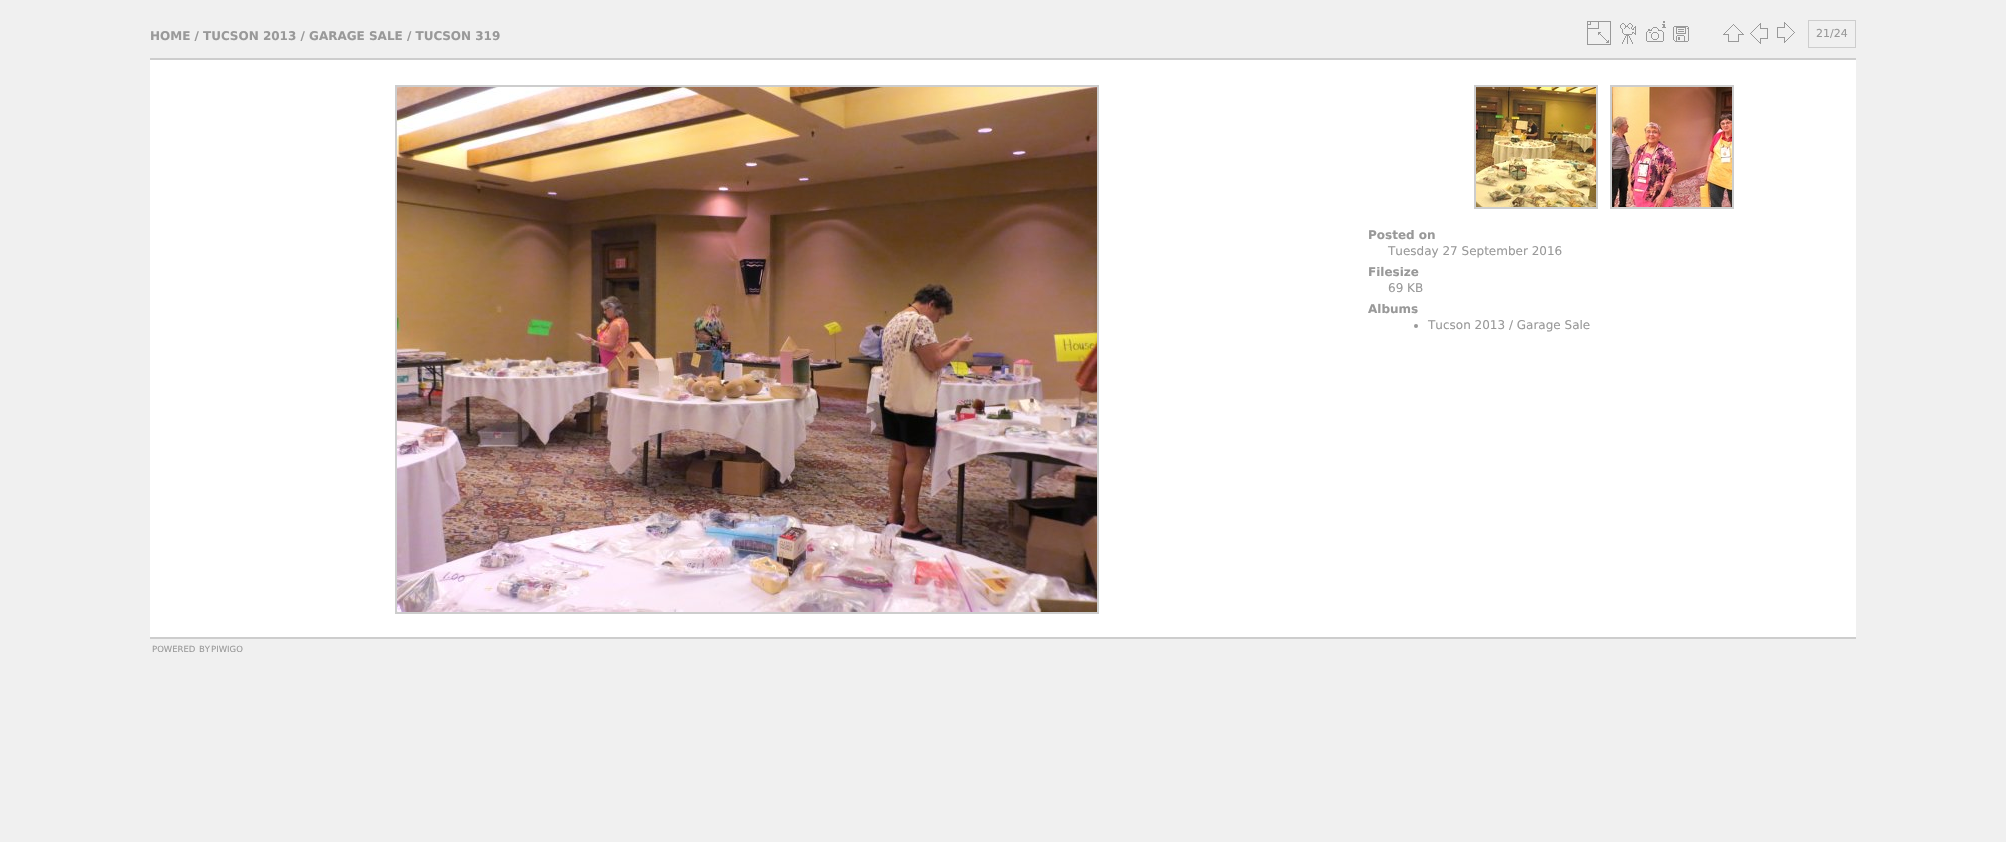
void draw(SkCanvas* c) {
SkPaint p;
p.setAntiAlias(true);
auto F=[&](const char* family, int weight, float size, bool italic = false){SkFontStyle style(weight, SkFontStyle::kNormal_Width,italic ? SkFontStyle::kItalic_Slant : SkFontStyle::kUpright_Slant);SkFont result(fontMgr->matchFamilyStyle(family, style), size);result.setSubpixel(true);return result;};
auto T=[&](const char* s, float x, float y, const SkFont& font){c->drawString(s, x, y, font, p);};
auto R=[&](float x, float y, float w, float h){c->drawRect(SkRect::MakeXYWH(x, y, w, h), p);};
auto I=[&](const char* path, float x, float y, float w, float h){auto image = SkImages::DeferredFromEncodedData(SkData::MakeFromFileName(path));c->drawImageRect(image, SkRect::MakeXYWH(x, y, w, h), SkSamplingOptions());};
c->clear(0xfff0f0f0);
p.setColor(0xffcdcdcd);
R(150,637,1706,2);
auto f1 = F("DejaVu Sans",700,12);
p.setColor(0xff999999);
T("HOME / TUCSON 2013 / GARAGE SALE / TUCSON 319",150,40,f1);
I("1.png",1587,21,24,24);
I("2.png",1620,23,16,21);
I("3.png",1646,21,20,21);
I("4.png",1673,26,16,16);
I("5.png",1723,24,21,18);
I("6.png",1750,23,18,21);
I("7.png",1777,22,18,21);
p.setStroke(true);
p.setStrokeWidth(1);
p.setColor(0xffcdcdcd);
c->drawRect(SkRect::MakeXYWH(1808.5,20.5,47,27),p);
auto f2 = F("DejaVu Sans",400,11);
p.setStroke(false);
p.setColor(0xff999999);
T("21/24",1816,37,f2);
p.setColor(0xffffffff);
R(150,60,1706,577);
p.setColor(0xffcdcdcd);
R(150,58,1706,2);
p.setStroke(true);
p.setStrokeWidth(2);
c->drawRect(SkRect::MakeXYWH(396,86,702,527),p);
I("8.png",397,87,700,525);
c->drawRect(SkRect::MakeXYWH(1475,86,122,122),p);
I("9.png",1476,87,120,120);
c->drawRect(SkRect::MakeXYWH(1611,86,122,122),p);
I("10.png",1612,87,120,120);
p.setStroke(false);
p.setColor(0xff999999);
T("Posted on",1368,239,f1);
auto f3 = F("DejaVu Sans",400,12);
T("Tuesday 27 September 2016",1388,255,f3);
T("Filesize",1368,276,f1);
T("69 KB",1388,292,f3);
T("Albums",1368,313,f1);
c->drawCircle(1416,326,2,p);
T("Tucson 2013 / Garage Sale",1428,329,f3);
auto f4 = F("DejaVu Sans",400,8.5);
T("POWERED",152,652,f4);
T("BY",199,652,f4);
T("PIWIGO",211,652,f4);
}
